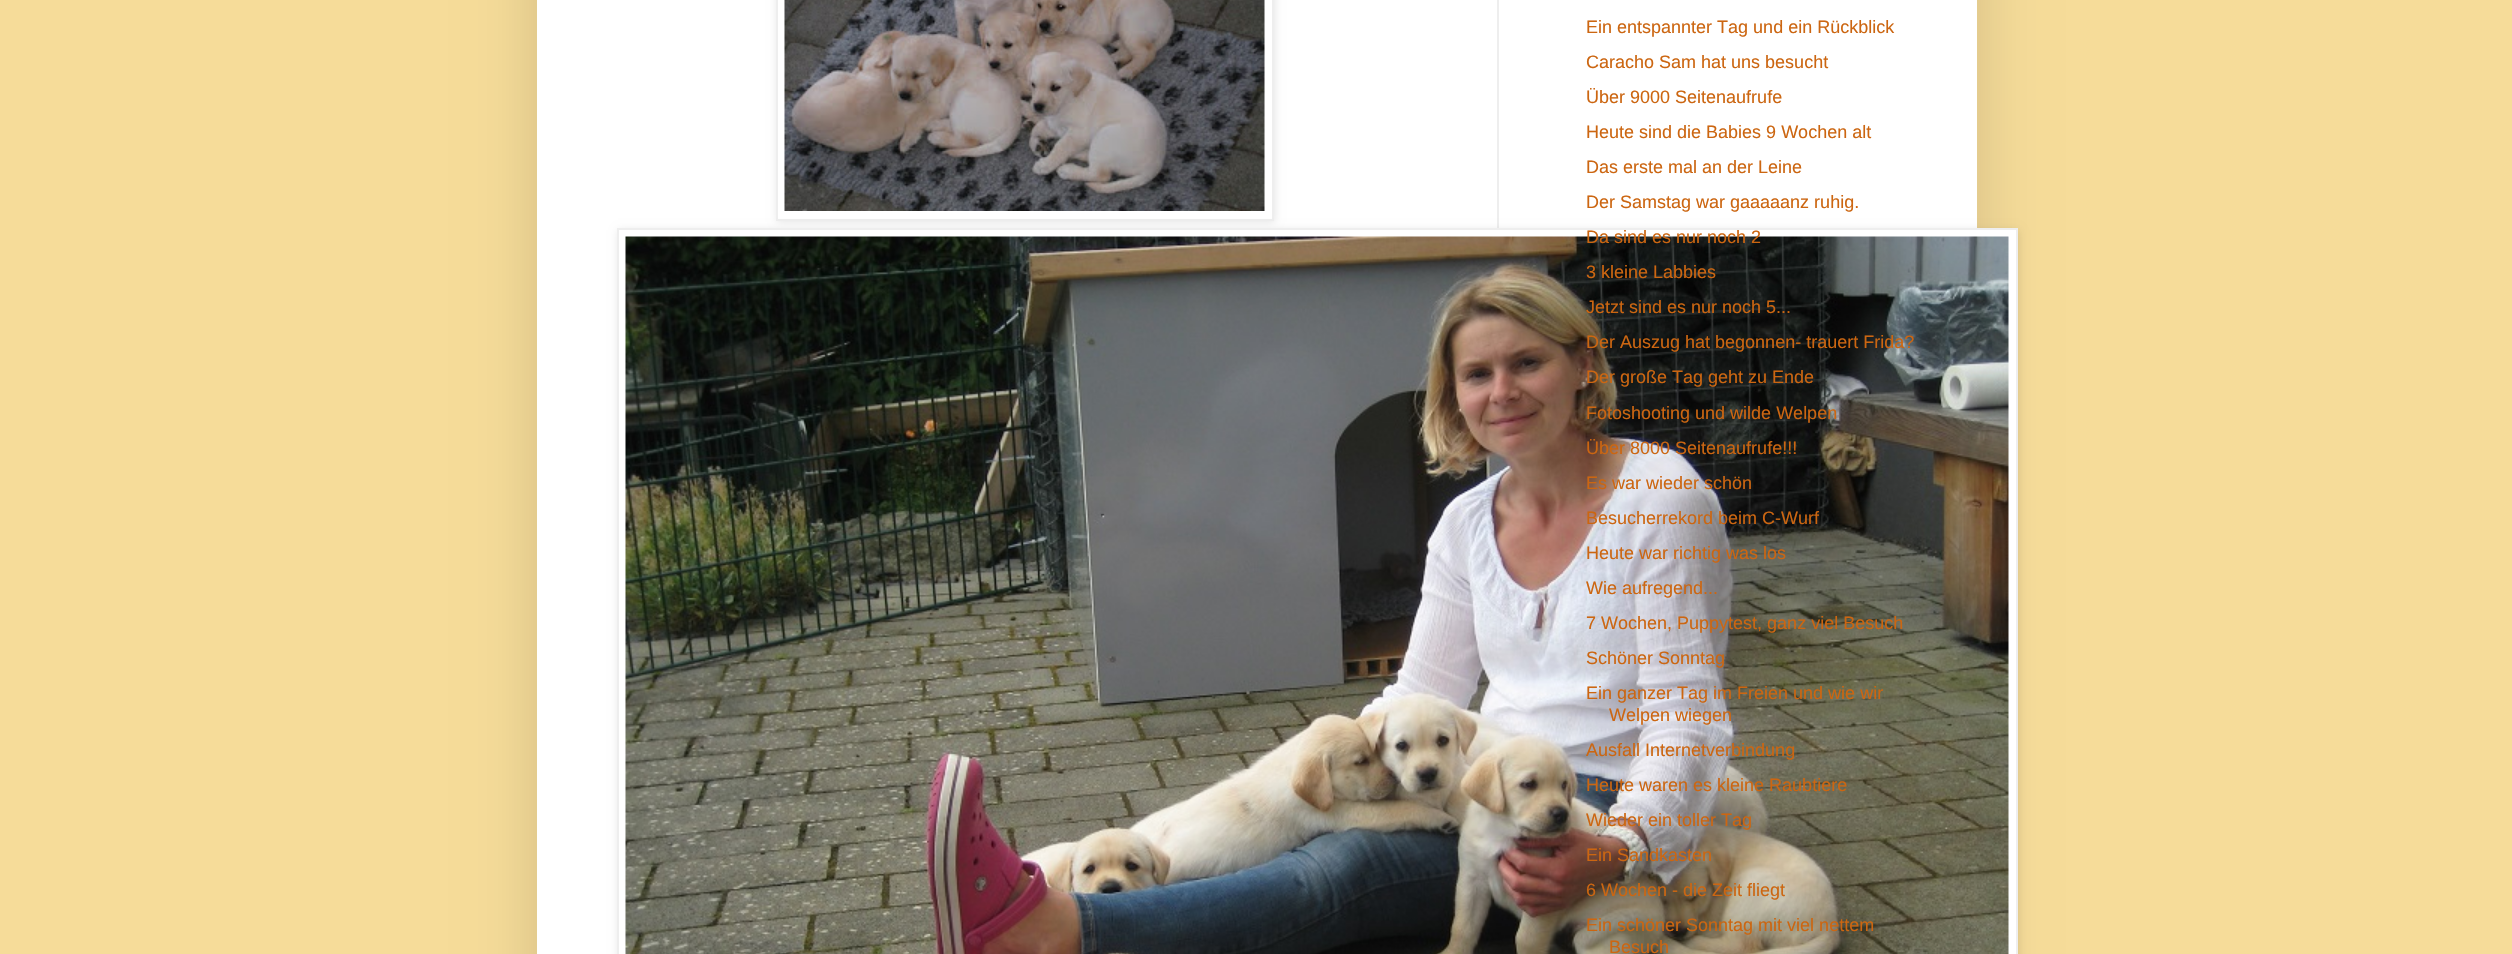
void draw(SkCanvas* c) {
SkPaint p;
p.setAntiAlias(true);
auto F=[&](const char* family, int weight, float size, bool italic = false){SkFontStyle style(weight, SkFontStyle::kNormal_Width,italic ? SkFontStyle::kItalic_Slant : SkFontStyle::kUpright_Slant);SkFont result(fontMgr->matchFamilyStyle(family, style), size);result.setSubpixel(true);return result;};
auto T=[&](const char* s, float x, float y, const SkFont& font){c->drawString(s, x, y, font, p);};
auto R=[&](float x, float y, float w, float h){c->drawRect(SkRect::MakeXYWH(x, y, w, h), p);};
auto I=[&](const char* path, float x, float y, float w, float h){auto image = SkImages::DeferredFromEncodedData(SkData::MakeFromFileName(path));c->drawImageRect(image, SkRect::MakeXYWH(x, y, w, h), SkSamplingOptions());};
c->clear(0xfff6dc99);
p.setColor(0x26000000);
p.setMaskFilter(SkMaskFilter::MakeBlur(kNormal_SkBlurStyle, 30));
c->drawRect(SkRect::MakeXYWH(537,-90,1440,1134),p);
p.setMaskFilter(nullptr);
p.setColor(0xffffffff);
R(537,0,1440,954);
p.setColor(0xffeeeeee);
R(1497,0,2,228);
p.setColor(0x1a000000);
p.setMaskFilter(SkMaskFilter::MakeBlur(kNormal_SkBlurStyle, 4));
c->drawRect(SkRect::MakeXYWH(777,-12,498,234),p);
p.setMaskFilter(nullptr);
p.setColor(0xffffffff);
c->drawRect(SkRect::MakeXYWH(777,-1,496,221),p);
p.setStroke(true);
p.setStrokeWidth(2);
p.setColor(0xffeeeeee);
c->drawRect(SkRect::MakeXYWH(777,-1,496,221),p);
I("1.png",784,0,481,211);
p.setStroke(false);
p.setColor(0x1a000000);
p.setMaskFilter(SkMaskFilter::MakeBlur(kNormal_SkBlurStyle, 4));
c->drawRect(SkRect::MakeXYWH(618,230,1401,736),p);
p.setMaskFilter(nullptr);
p.setColor(0xffffffff);
c->drawRect(SkRect::MakeXYWH(618,229,1399,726),p);
p.setStroke(true);
p.setColor(0xffeeeeee);
c->drawRect(SkRect::MakeXYWH(618,229,1399,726),p);
I("2.png",625,236,1384,718);
auto f1 = F("Liberation Sans",400,18);
p.setStroke(false);
p.setColor(0xffcc6611);
T("Ein entspannter Tag und ein Rückblick",1586,33,f1);
T("Caracho Sam hat uns besucht",1586,68,f1);
T("Über 9000 Seitenaufrufe",1586,103,f1);
T("Heute sind die Babies 9 Wochen alt",1586,138,f1);
T("Das erste mal an der Leine",1586,173,f1);
T("Der Samstag war gaaaaanz ruhig.",1586,208,f1);
T("Da sind es nur noch 2",1586,243,f1);
T("3 kleine Labbies",1586,278,f1);
T("Jetzt sind es nur noch 5...",1586,313,f1);
T("Der Auszug hat begonnen- trauert Frida?",1586,348,f1);
T("Der große Tag geht zu Ende",1586,383,f1);
T("Fotoshooting und wilde Welpen",1586,419,f1);
T("Über 8000 Seitenaufrufe!!!",1586,454,f1);
T("Es war wieder schön",1586,489,f1);
T("Besucherrekord beim C-Wurf",1586,524,f1);
T("Heute war richtig was los",1586,559,f1);
T("Wie aufregend...",1586,594,f1);
T("7 Wochen, Puppytest, ganz viel Besuch",1586,629,f1);
T("Schöner Sonntag",1586,664,f1);
T("Ein ganzer Tag im Freien und wie wir",1586,699,f1);
T("Welpen wiegen",1609,721,f1);
T("Ausfall Internetverbindung",1586,756,f1);
T("Heute waren es kleine Raubtiere",1586,791,f1);
T("Wieder ein toller Tag",1586,826,f1);
T("Ein Sandkasten",1586,861,f1);
T("6 Wochen - die Zeit fliegt",1586,896,f1);
T("Ein schöner Sonntag mit viel nettem",1586,931,f1);
T("Besuch",1609,953,f1);
}
